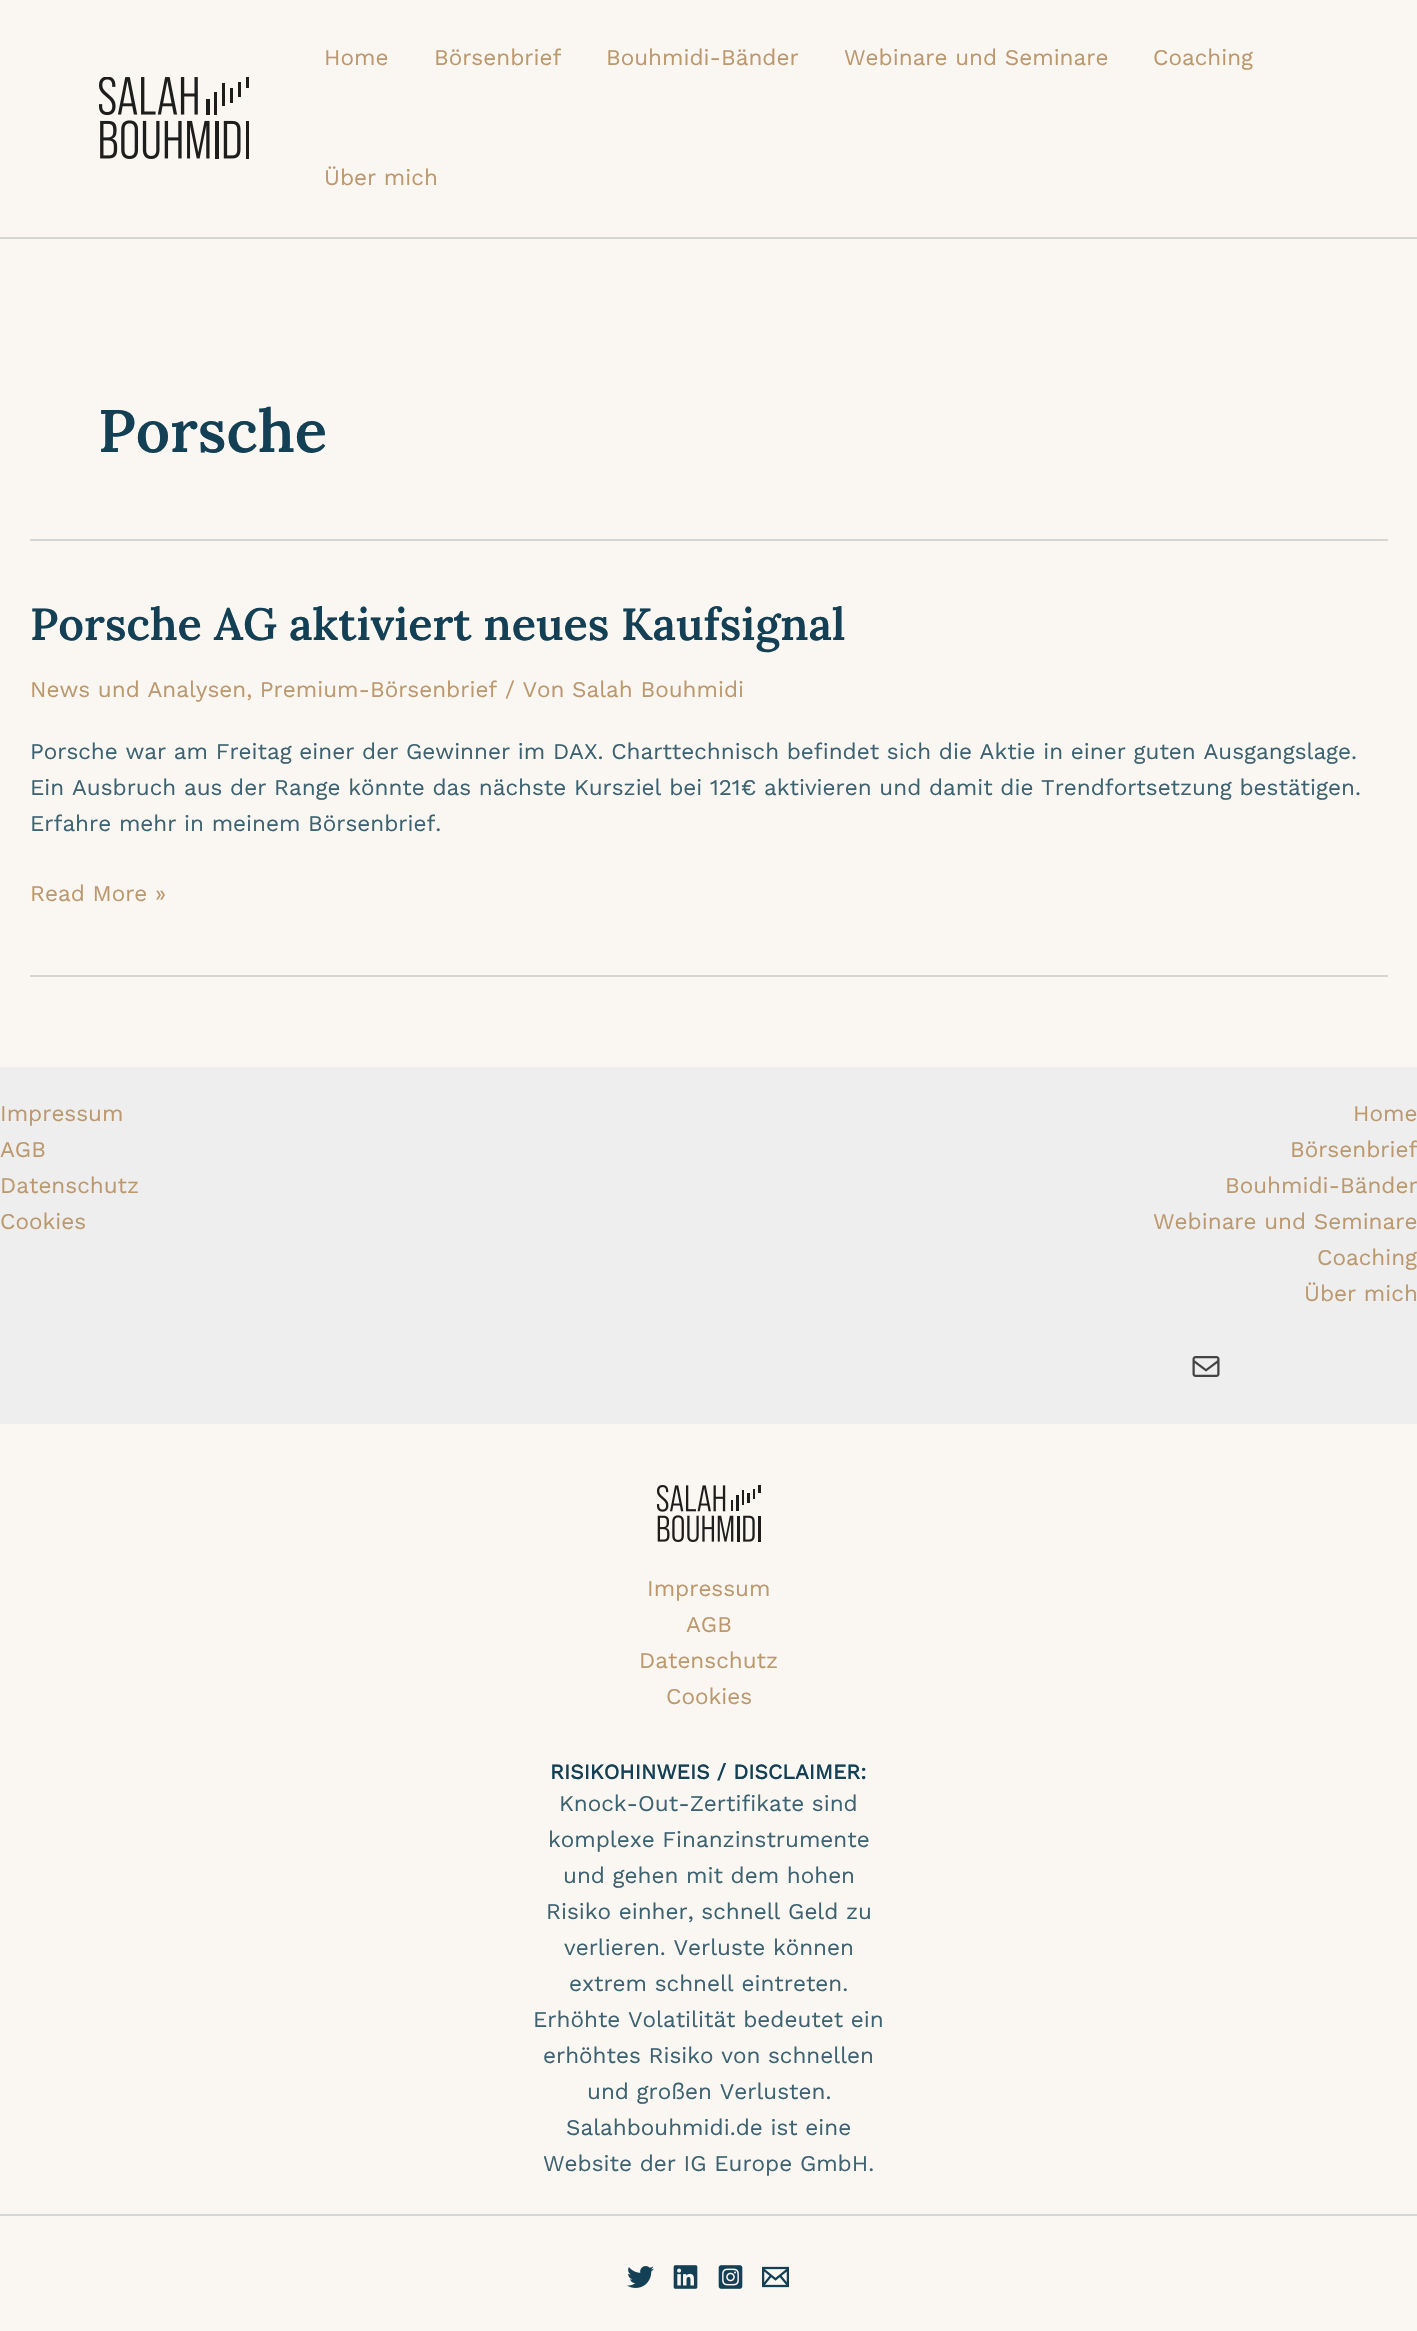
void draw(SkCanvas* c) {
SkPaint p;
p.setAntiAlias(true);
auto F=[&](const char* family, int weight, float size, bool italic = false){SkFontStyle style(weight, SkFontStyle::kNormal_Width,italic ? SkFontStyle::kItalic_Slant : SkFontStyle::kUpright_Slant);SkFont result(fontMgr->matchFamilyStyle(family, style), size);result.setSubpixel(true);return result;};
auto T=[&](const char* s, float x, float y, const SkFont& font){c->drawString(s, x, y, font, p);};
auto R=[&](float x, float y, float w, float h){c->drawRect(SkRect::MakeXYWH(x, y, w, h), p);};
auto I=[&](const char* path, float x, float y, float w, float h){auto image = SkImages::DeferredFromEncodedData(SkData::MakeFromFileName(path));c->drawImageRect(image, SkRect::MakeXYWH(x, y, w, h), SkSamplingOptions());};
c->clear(0xfffaf6f2);
p.setColor(0xffd5d5d3);
R(0,237,1417,2);
I("1.png",99,77,150,82);
auto f1 = F("Work Sans",400,22.5);
p.setColor(0xffbc986d);
T("Home",324,65,f1);
T("Börsenbrief",434,65,f1);
T("Bouhmidi-Bänder",606,65,f1);
T("Webinare und Seminare",844,65,f1);
T("Coaching",1153,65,f1);
T("Über mich",324,185,f1);
p.setColor(0xffd5d5d3);
R(30,539,1358,2);
auto f2 = F("Lora",600,60);
p.setColor(0xff134054);
T("Porsche",98,452,f2);
p.setColor(0xffd5d5d3);
R(30,975,1358,2);
auto f3 = F("Lora",600,45);
p.setColor(0xff134054);
T("Porsche AG aktiviert neues Kaufsignal",30,640,f3);
p.setColor(0xffbc986d);
T("News und Analysen, Premium-Börsenbrief / Von Salah Bouhmidi",30,697,f1);
p.setColor(0xff3d6270);
T("Porsche war am Freitag einer der Gewinner im DAX. Charttechnisch befindet sich die Aktie in einer guten Ausgangslage.",30,759,f1);
T("Ein Ausbruch aus der Range könnte das nächste Kursziel bei 121€ aktivieren und damit die Trendfortsetzung bestätigen.",30,795,f1);
T("Erfahre mehr in meinem Börsenbrief.",30,831,f1);
p.setColor(0xffbc986d);
T("Read More »",30,901,f1);
p.setColor(0xffeeeeee);
R(0,1067,1417,357);
p.setColor(0xffbc986d);
T("Impressum",0,1121,f1);
T("AGB",0,1157,f1);
T("Datenschutz",0,1193,f1);
T("Cookies",0,1229,f1);
T("Home",1353,1121,f1);
T("Börsenbrief",1290,1157,f1);
T("Bouhmidi-Bänder",1225,1193,f1);
T("Webinare und Seminare",1153,1229,f1);
T("Coaching",1317,1265,f1);
T("Über mich",1304,1301,f1);
I("2.png",1192,1356,28,21);
I("3.png",656,1485,105,57);
T("Impressum",647,1596,f1);
T("AGB",686,1632,f1);
T("Datenschutz",639,1668,f1);
T("Cookies",666,1704,f1);
auto f4 = F("Work Sans",700,21);
p.setColor(0xff134054);
T("RISIKOHINWEIS / DISCLAIMER:",550,1779,f4);
p.setColor(0xff3d6270);
T("Knock-Out-Zertifikate sind",559,1811,f1);
T("komplexe Finanzinstrumente",548,1847,f1);
T("und gehen mit dem hohen",563,1883,f1);
T("Risiko einher, schnell Geld zu",546,1919,f1);
T("verlieren. Verluste können",564,1955,f1);
T("extrem schnell eintreten.",569,1991,f1);
T("Erhöhte Volatilität bedeutet ein",533,2027,f1);
T("erhöhtes Risiko von schnellen",543,2063,f1);
T("und großen Verlusten.",587,2099,f1);
T("Salahbouhmidi.de ist eine",566,2135,f1);
T("Website der IG Europe GmbH.",543,2171,f1);
p.setColor(0xffd5d5d3);
R(0,2214,1417,2);
I("4.png",627,2266,27,22);
I("5.png",673,2265,25,24);
I("6.png",718,2265,25,24);
I("7.png",762,2266,27,22);
}
